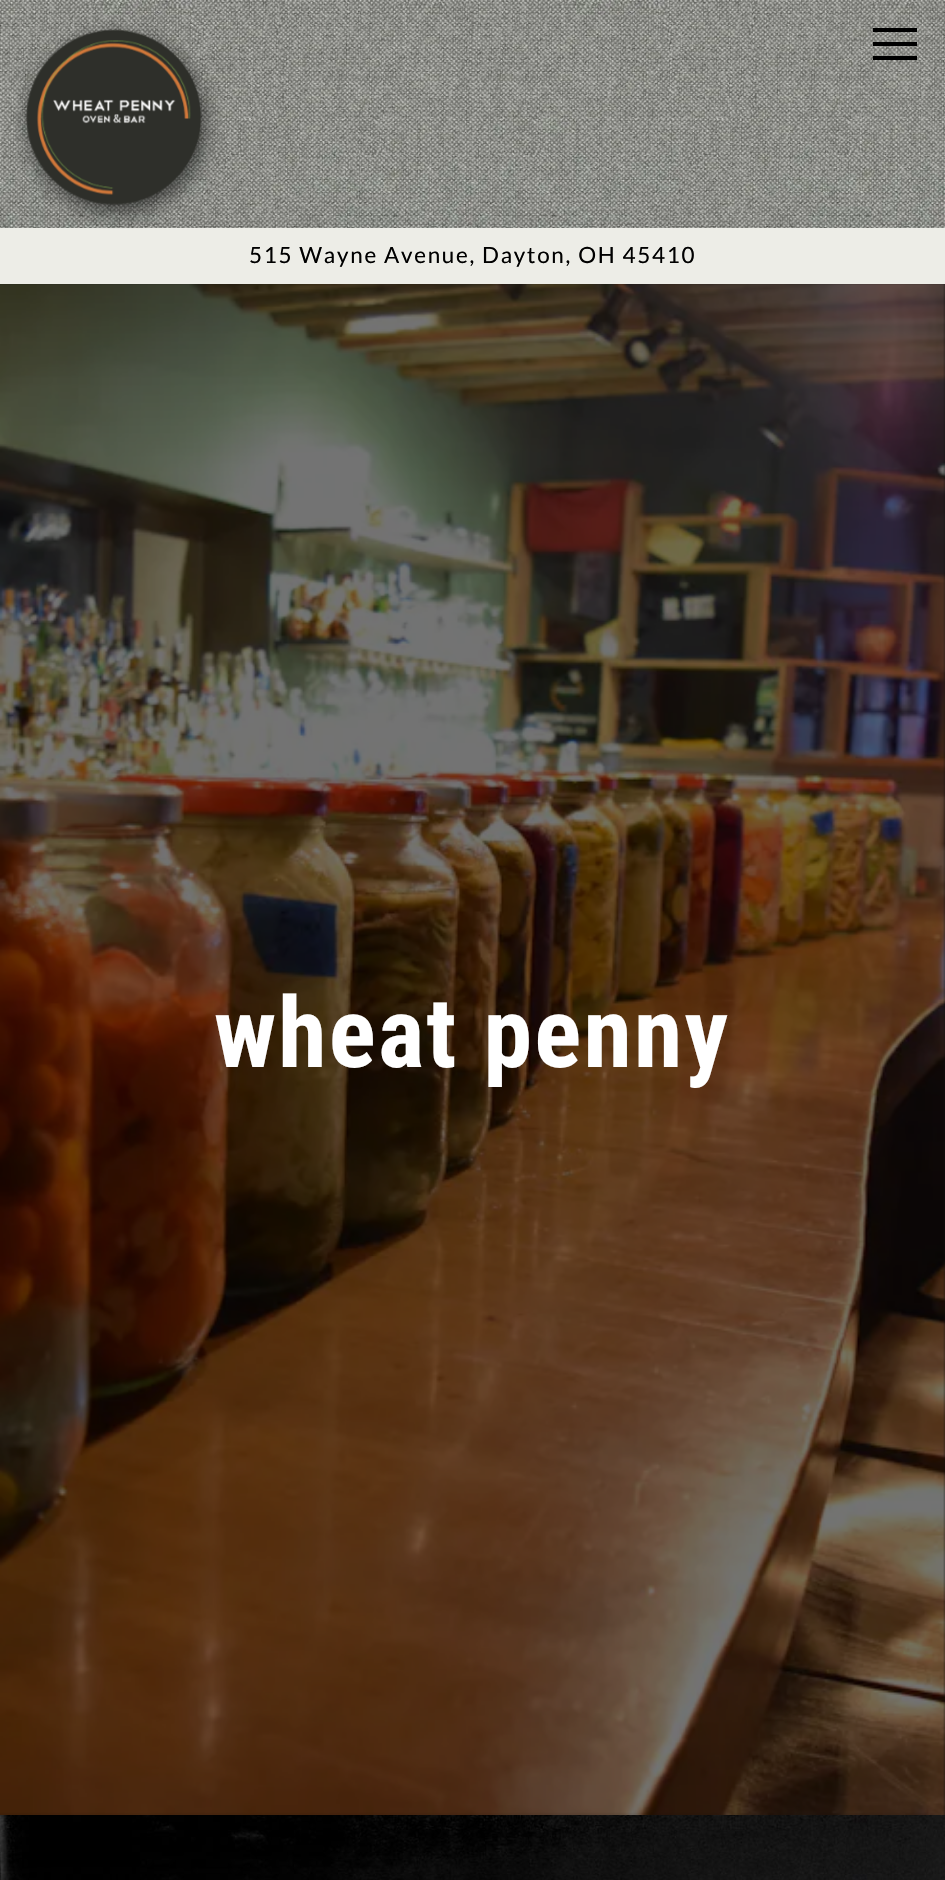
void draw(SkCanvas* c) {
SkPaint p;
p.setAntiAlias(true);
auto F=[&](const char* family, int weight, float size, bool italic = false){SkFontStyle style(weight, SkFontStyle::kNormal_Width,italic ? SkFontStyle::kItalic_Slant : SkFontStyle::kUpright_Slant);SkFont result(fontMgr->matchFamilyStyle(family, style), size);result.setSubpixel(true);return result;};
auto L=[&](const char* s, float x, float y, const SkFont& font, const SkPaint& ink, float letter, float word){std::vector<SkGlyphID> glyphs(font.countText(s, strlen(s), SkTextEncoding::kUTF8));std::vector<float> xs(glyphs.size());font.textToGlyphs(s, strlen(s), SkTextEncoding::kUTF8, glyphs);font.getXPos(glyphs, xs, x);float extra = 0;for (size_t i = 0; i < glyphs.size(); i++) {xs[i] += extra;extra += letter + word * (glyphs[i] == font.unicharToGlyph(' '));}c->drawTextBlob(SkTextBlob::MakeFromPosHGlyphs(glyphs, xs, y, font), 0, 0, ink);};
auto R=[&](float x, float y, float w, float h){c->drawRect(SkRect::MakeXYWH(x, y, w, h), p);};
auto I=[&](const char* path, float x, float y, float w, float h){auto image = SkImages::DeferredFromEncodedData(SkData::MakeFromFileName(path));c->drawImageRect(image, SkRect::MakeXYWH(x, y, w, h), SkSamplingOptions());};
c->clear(0xffffffff);
I("1.png",0,1815,945,65);
I("2.png",0,0,945,228);
p.setColor(0xffedede7);
R(0,228,945,56);
I("3.png",13,20,209,209);
p.setColor(0xff000000);
R(873,28,44,4);
R(873,42,44,4);
R(873,56,44,4);
auto f1 = F("Lato",400,22.4);
L("515 Wayne Avenue, Dayton, OH 45410",249,263,f1,p,1.75,0);
p.setColor(0xff1f1f1f);
R(0,284,945,1531);
I("4.png",0,284,945,1531);
p.setColor(0x8c000000);
R(0,284,945,1531);
auto f2 = F("Roboto Condensed",700,98);
p.setColor(0xffffffff);
L("wheat penny",214,1067,f2,p,2.25,0);
}
